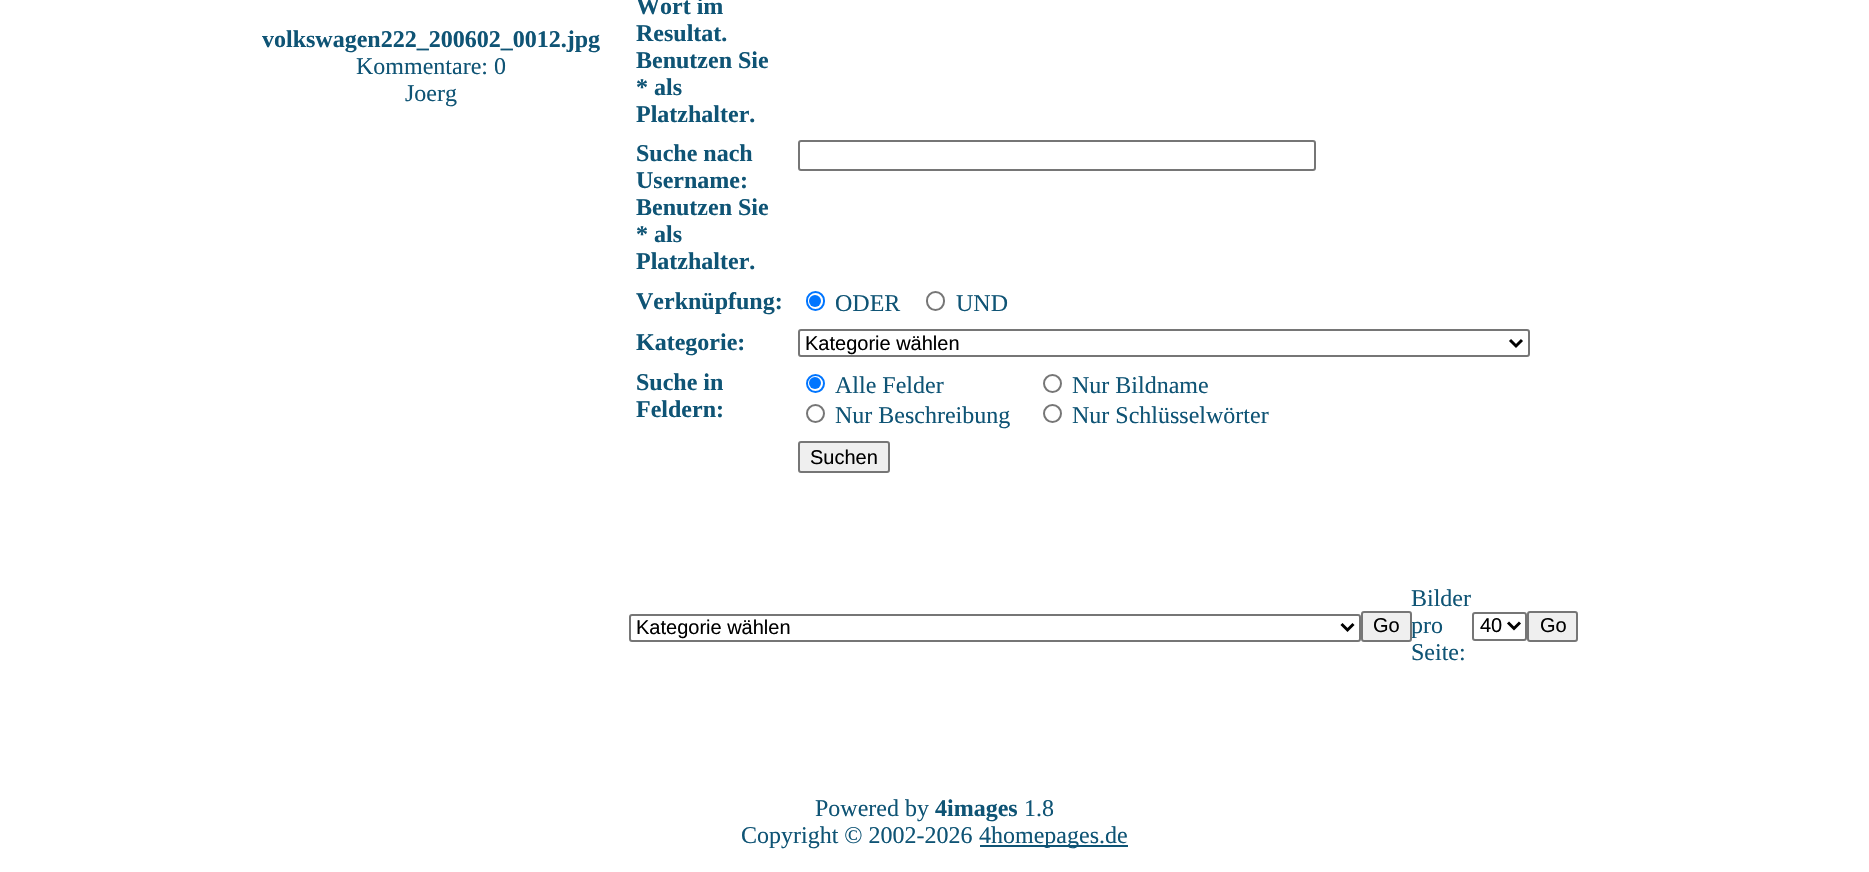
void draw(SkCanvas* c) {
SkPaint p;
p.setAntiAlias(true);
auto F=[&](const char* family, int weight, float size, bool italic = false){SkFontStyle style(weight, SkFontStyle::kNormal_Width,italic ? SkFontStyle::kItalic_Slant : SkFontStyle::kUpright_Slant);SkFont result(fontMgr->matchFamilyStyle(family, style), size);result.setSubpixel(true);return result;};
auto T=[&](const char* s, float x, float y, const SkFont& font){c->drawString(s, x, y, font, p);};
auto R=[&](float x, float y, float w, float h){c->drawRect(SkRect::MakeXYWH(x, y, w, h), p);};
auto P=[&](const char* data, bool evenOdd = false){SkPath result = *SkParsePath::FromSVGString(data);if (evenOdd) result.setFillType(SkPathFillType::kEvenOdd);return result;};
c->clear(0xffffffff);
auto f1 = F("Liberation Serif",700,24);
p.setColor(0xff0f5475);
T("volkswagen222_200602_0012.jpg",262,47,f1);
auto f2 = F("Liberation Serif",400,24);
T("Kommentare: 0",356,74,f2);
T("Joerg",405,101,f2);
T("Wort im",636,14,f1);
T("Resultat.",636,41,f1);
T("Benutzen Sie",636,68,f1);
T("* als",636,95,f1);
T("Platzhalter.",636,122,f1);
T("Suche nach",636,161,f1);
T("Username:",636,188,f1);
T("Benutzen Sie",636,215,f1);
T("* als",636,242,f1);
T("Platzhalter.",636,269,f1);
p.setStroke(true);
p.setStrokeWidth(2);
p.setColor(0xff767676);
c->drawRoundRect(SkRect::MakeXYWH(799,141,516,29),2,2,p);
p.setStroke(false);
p.setColor(0xff0f5475);
T("Verknüpfung:",636,309,f1);
p.setStroke(true);
p.setColor(0xff0075ff);
c->drawRoundRect(SkRect::MakeXYWH(807,292,17,18),8.5,8.5,p);
p.setStroke(false);
c->drawCircle(815,301,6,p);
p.setColor(0xff0f5475);
T("ODER",835,311,f2);
p.setStroke(true);
p.setColor(0xff767676);
c->drawRoundRect(SkRect::MakeXYWH(927,292,17,18),8.5,8.5,p);
p.setStroke(false);
p.setColor(0xff0f5475);
T("UND",956,311,f2);
T("Kategorie:",636,350,f1);
p.setStroke(true);
p.setColor(0xff767676);
c->drawRoundRect(SkRect::MakeXYWH(799,330,730,26),2,2,p);
p.setStrokeWidth(3);
p.setColor(0xff000000);
c->drawPath(P("M1510 340l6 6l6-6"),p);
auto f3 = F("Liberation Sans",400,20);
p.setStroke(false);
T("Kategorie wählen",805,350,f3);
p.setColor(0xff0f5475);
T("Suche in",636,390,f1);
T("Feldern:",636,417,f1);
p.setStroke(true);
p.setStrokeWidth(2);
p.setColor(0xff0075ff);
c->drawCircle(815.5,383.5,8.5,p);
p.setStroke(false);
c->drawCircle(815,383,6,p);
p.setColor(0xff0f5475);
T("Alle Felder",835,393,f2);
p.setStroke(true);
p.setColor(0xff767676);
c->drawCircle(1052.5,383.5,8.5,p);
p.setStroke(false);
p.setColor(0xff0f5475);
T("Nur Bildname",1072,393,f2);
p.setStroke(true);
p.setColor(0xff767676);
c->drawCircle(815.5,413.5,8.5,p);
p.setStroke(false);
p.setColor(0xff0f5475);
T("Nur Beschreibung",835,423,f2);
p.setStroke(true);
p.setColor(0xff767676);
c->drawCircle(1052.5,413.5,8.5,p);
p.setStroke(false);
p.setColor(0xff0f5475);
T("Nur Schlüsselwörter",1072,423,f2);
p.setColor(0xffefefef);
c->drawRoundRect(SkRect::MakeXYWH(799,442,90,30),2,2,p);
p.setStroke(true);
p.setColor(0xff767676);
c->drawRoundRect(SkRect::MakeXYWH(799,442,90,30),2,2,p);
p.setStroke(false);
p.setColor(0xff000000);
T("Suchen",810,464,f3);
p.setStroke(true);
p.setColor(0xff767676);
c->drawRoundRect(SkRect::MakeXYWH(630,615,730,26),2,2,p);
p.setStrokeWidth(3);
p.setColor(0xff000000);
c->drawPath(P("M1341.5 624l6 6l6-6"),p);
p.setStroke(false);
T("Kategorie wählen",636,634,f3);
p.setColor(0xff0f5475);
T("pro",1411,633,f2);
p.setColor(0xffefefef);
c->drawRoundRect(SkRect::MakeXYWH(1362,612,49,29),2,2,p);
p.setStroke(true);
p.setStrokeWidth(2);
p.setColor(0xff767676);
c->drawRoundRect(SkRect::MakeXYWH(1362,612,49,29),2,2,p);
p.setStroke(false);
p.setColor(0xff000000);
T("Go",1373,632,f3);
p.setColor(0xff0f5475);
T("Bilder",1411,606,f2);
T("Seite:",1411,660,f2);
p.setStroke(true);
p.setColor(0xff767676);
c->drawRoundRect(SkRect::MakeXYWH(1473,613,53,27),2,2,p);
p.setStrokeWidth(3);
p.setColor(0xff000000);
c->drawPath(P("M1508 622.5l6 6l6-6"),p);
p.setStroke(false);
T("40",1480,632,f3);
p.setColor(0xffefefef);
c->drawRoundRect(SkRect::MakeXYWH(1528,612,49,29),2,2,p);
p.setStroke(true);
p.setStrokeWidth(2);
p.setColor(0xff767676);
c->drawRoundRect(SkRect::MakeXYWH(1528,612,49,29),2,2,p);
p.setStroke(false);
p.setColor(0xff000000);
T("Go",1540,632,f3);
p.setColor(0xff0f5475);
T("Powered by",815,816,f2);
T("4images",935,816,f1);
T("1.8",1024,816,f2);
T("Copyright © 2002-2026",741,843,f2);
R(980,845,148,2);
T("4homepages.de",979,843,f2);
}
